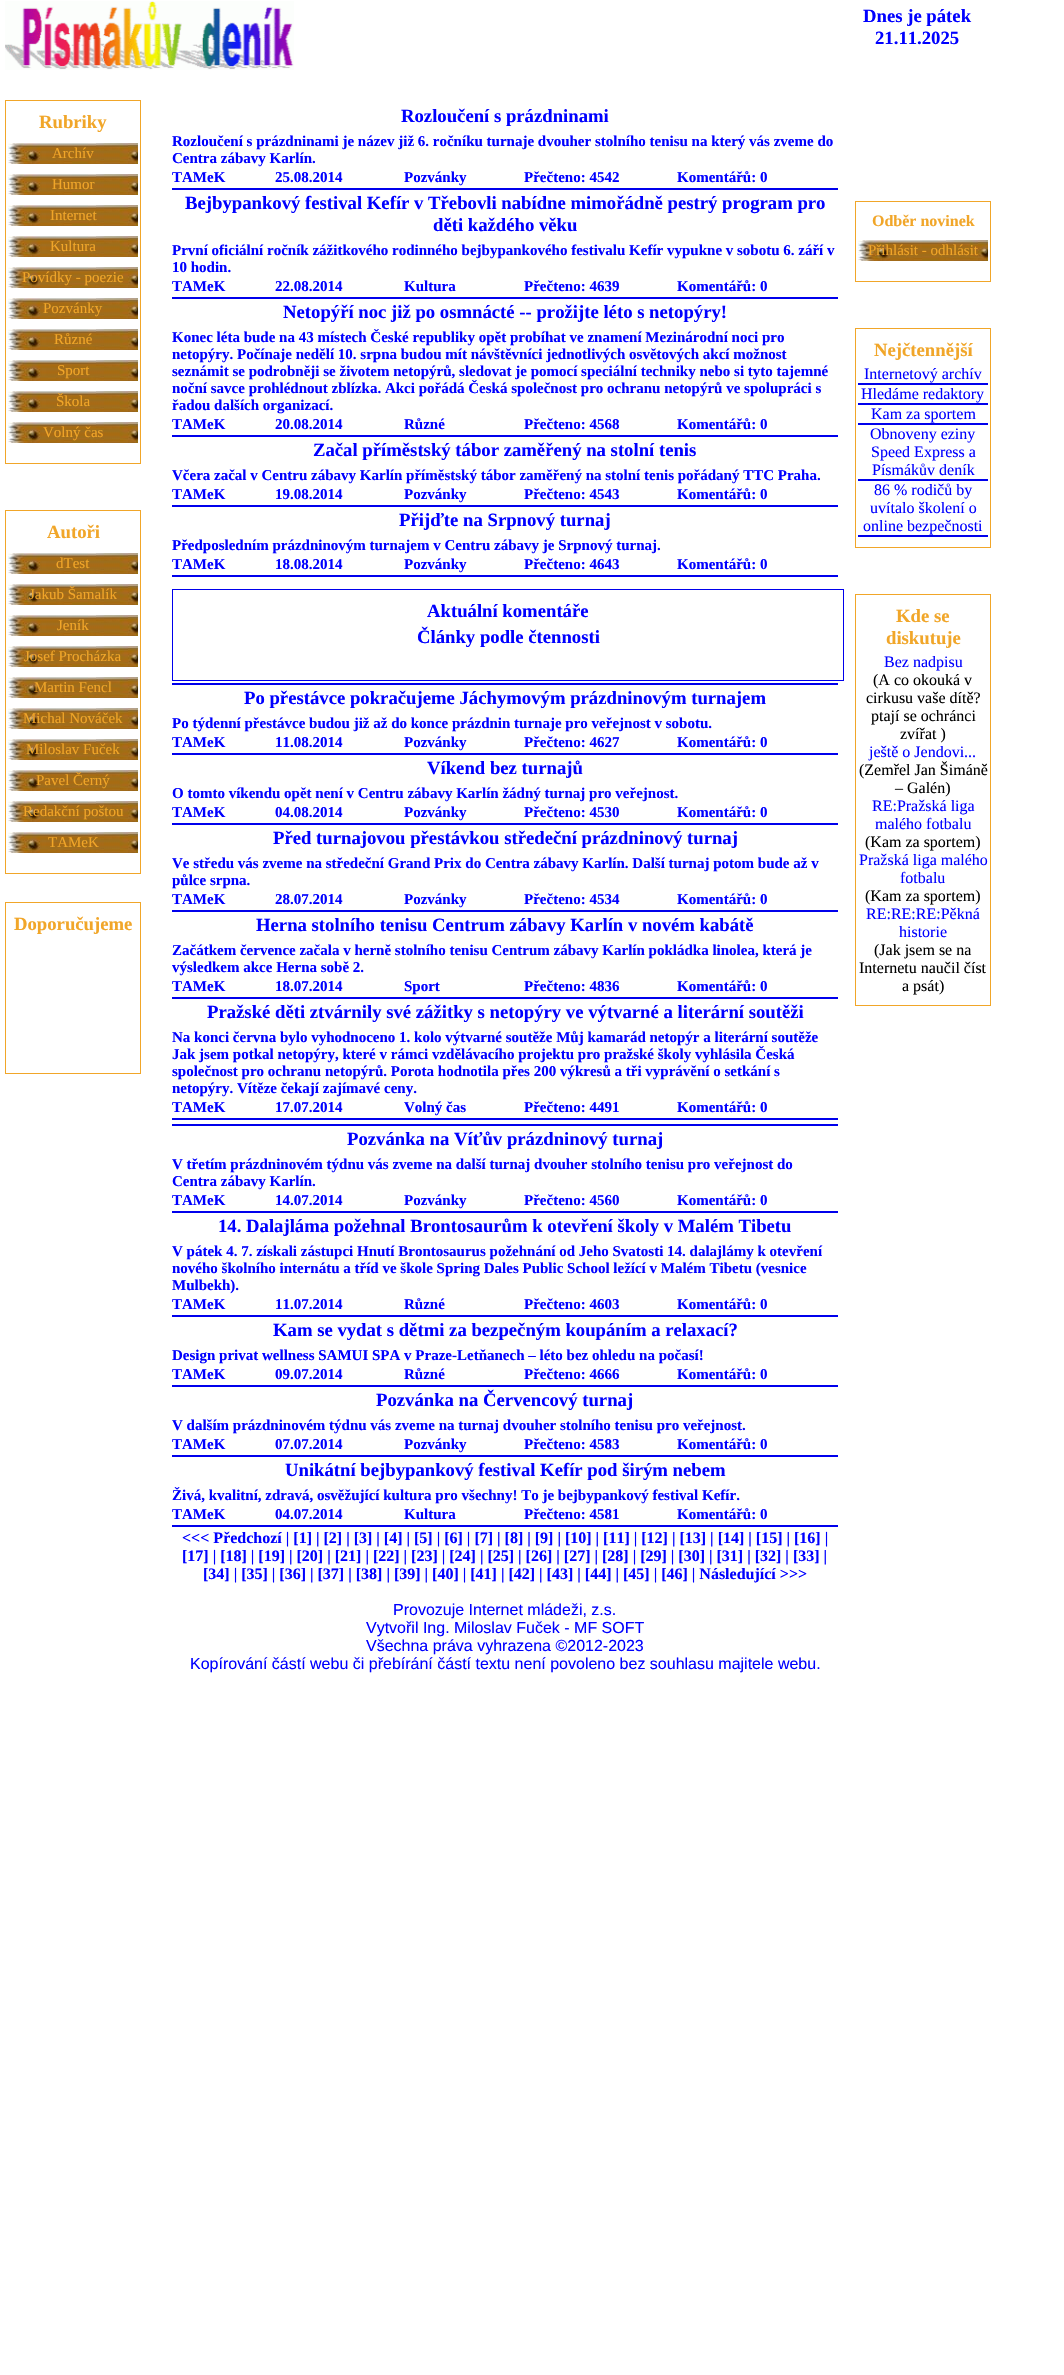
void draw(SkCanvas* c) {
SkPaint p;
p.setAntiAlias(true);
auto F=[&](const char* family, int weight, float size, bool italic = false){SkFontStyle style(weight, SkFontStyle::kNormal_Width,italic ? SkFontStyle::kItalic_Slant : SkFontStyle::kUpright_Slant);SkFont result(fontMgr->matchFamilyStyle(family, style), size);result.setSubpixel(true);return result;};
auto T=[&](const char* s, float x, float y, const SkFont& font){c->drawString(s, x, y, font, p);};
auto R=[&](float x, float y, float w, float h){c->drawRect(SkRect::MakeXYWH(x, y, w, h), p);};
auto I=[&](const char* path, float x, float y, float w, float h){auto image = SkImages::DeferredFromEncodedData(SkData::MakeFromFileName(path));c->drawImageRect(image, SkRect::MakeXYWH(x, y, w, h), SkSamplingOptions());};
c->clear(0xffffffff);
I("1.png",5,1,289,69);
auto f1 = F("Liberation Serif",700,18.7);
p.setColor(0xff0000ff);
T("Rozloučení s prázdninami",401,122,f1);
auto f2 = F("Liberation Serif",700,15);
T("Rozloučení s prázdninami je název již 6. ročníku turnaje dvouher stolního tenisu na který vás zveme do",172,146,f2);
T("Centra zábavy Karlín.",172,163,f2);
T("TAMeK",172,182,f2);
T("25.08.2014",275,182,f2);
T("Pozvánky",404,182,f2);
T("Přečteno: 4542",524,182,f2);
T("Komentářů: 0",677,182,f2);
p.setColor(0xff0000ec);
R(172,188,666,2);
p.setColor(0xff0000ff);
T("Bejbypankový festival Kefír v Třebovli nabídne mimořádně pestrý program pro",185,209,f1);
T("děti každého věku",433,231,f1);
T("První oficiální ročník zážitkového rodinného bejbypankového festivalu Kefír vypukne v sobotu 6. září v",172,255,f2);
T("10 hodin.",172,272,f2);
T("TAMeK",172,291,f2);
T("22.08.2014",275,291,f2);
T("Kultura",404,291,f2);
T("Přečteno: 4639",524,291,f2);
T("Komentářů: 0",677,291,f2);
p.setColor(0xff0000ec);
R(172,297,666,2);
p.setColor(0xff0000ff);
T("Netopýří noc již po osmnácté -- prožijte léto s netopýry!",283,318,f1);
T("Konec léta bude na 43 místech České republiky opět probíhat ve znamení Mezinárodní noci pro",172,342,f2);
T("netopýry. Počínaje nedělí 10. srpna budou mít návštěvníci jednotlivých osvětových akcí možnost",172,359,f2);
T("seznámit se podrobněji se životem netopýrů, sledovat je pomocí speciální techniky nebo si tyto tajemné",172,376,f2);
T("noční savce prohlédnout zblízka. Akci pořádá Česká společnost pro ochranu netopýrů ve spolupráci s",172,393,f2);
T("řadou dalších organizací.",172,410,f2);
T("TAMeK",172,429,f2);
T("20.08.2014",275,429,f2);
T("Různé",404,429,f2);
T("Přečteno: 4568",524,429,f2);
T("Komentářů: 0",677,429,f2);
p.setColor(0xff0000ec);
R(172,435,666,2);
p.setColor(0xff0000ff);
T("Začal příměstský tábor zaměřený na stolní tenis",313,456,f1);
T("Včera začal v Centru zábavy Karlín příměstský tábor zaměřený na stolní tenis pořádaný TTC Praha.",172,480,f2);
T("TAMeK",172,499,f2);
T("19.08.2014",275,499,f2);
T("Pozvánky",404,499,f2);
T("Přečteno: 4543",524,499,f2);
T("Komentářů: 0",677,499,f2);
p.setColor(0xff0000ec);
R(172,505,666,2);
p.setColor(0xff0000ff);
T("Přijďte na Srpnový turnaj",399,526,f1);
T("Předposledním prázdninovým turnajem v Centru zábavy je Srpnový turnaj.",172,550,f2);
T("TAMeK",172,569,f2);
T("18.08.2014",275,569,f2);
T("Pozvánky",404,569,f2);
T("Přečteno: 4643",524,569,f2);
T("Komentářů: 0",677,569,f2);
p.setColor(0xff0000ec);
R(172,575,666,2);
p.setStroke(true);
p.setStrokeWidth(1);
c->drawRect(SkRect::MakeXYWH(172.5,589.5,671,91),p);
p.setStroke(false);
p.setColor(0xff0000ff);
T("Aktuální komentáře",427,617,f1);
T("Články podle čtennosti",417,643,f1);
p.setColor(0xff0000ec);
R(172,683,666,2);
p.setColor(0xff0000ff);
T("Po přestávce pokračujeme Jáchymovým prázdninovým turnajem",244,704,f1);
T("Po týdenní přestávce budou již až do konce prázdnin turnaje pro veřejnost v sobotu.",172,728,f2);
T("TAMeK",172,747,f2);
T("11.08.2014",275,747,f2);
T("Pozvánky",404,747,f2);
T("Přečteno: 4627",524,747,f2);
T("Komentářů: 0",677,747,f2);
p.setColor(0xff0000ec);
R(172,753,666,2);
p.setColor(0xff0000ff);
T("Víkend bez turnajů",427,774,f1);
T("O tomto víkendu opět není v Centru zábavy Karlín žádný turnaj pro veřejnost.",172,798,f2);
T("TAMeK",172,817,f2);
T("04.08.2014",275,817,f2);
T("Pozvánky",404,817,f2);
T("Přečteno: 4530",524,817,f2);
T("Komentářů: 0",677,817,f2);
p.setColor(0xff0000ec);
R(172,823,666,2);
p.setColor(0xff0000ff);
T("Před turnajovou přestávkou středeční prázdninový turnaj",273,844,f1);
T("Ve středu vás zveme na středeční Grand Prix do Centra zábavy Karlín. Další turnaj potom bude až v",172,868,f2);
T("půlce srpna.",172,885,f2);
T("TAMeK",172,904,f2);
T("28.07.2014",275,904,f2);
T("Pozvánky",404,904,f2);
T("Přečteno: 4534",524,904,f2);
T("Komentářů: 0",677,904,f2);
p.setColor(0xff0000ec);
R(172,910,666,2);
p.setColor(0xff0000ff);
T("Herna stolního tenisu Centrum zábavy Karlín v novém kabátě",256,931,f1);
T("Začátkem července začala v herně stolního tenisu Centrum zábavy Karlín pokládka linolea, která je",172,955,f2);
T("výsledkem akce Herna sobě 2.",172,972,f2);
T("TAMeK",172,991,f2);
T("18.07.2014",275,991,f2);
T("Sport",404,991,f2);
T("Přečteno: 4836",524,991,f2);
T("Komentářů: 0",677,991,f2);
p.setColor(0xff0000ec);
R(172,997,666,2);
p.setColor(0xff0000ff);
T("Pražské děti ztvárnily své zážitky s netopýry ve výtvarné a literární soutěži",207,1018,f1);
T("Na konci června bylo vyhodnoceno 1. kolo výtvarné soutěže Můj kamarád netopýr a literární soutěže",172,1042,f2);
T("Jak jsem potkal netopýry, které v rámci vzdělávacího projektu pro pražské školy vyhlásila Česká",172,1059,f2);
T("společnost pro ochranu netopýrů. Porota hodnotila přes 200 výkresů a tři vyprávění o setkání s",172,1076,f2);
T("netopýry. Vítěze čekají zajímavé ceny.",172,1093,f2);
T("TAMeK",172,1112,f2);
T("17.07.2014",275,1112,f2);
T("Volný čas",404,1112,f2);
T("Přečteno: 4491",524,1112,f2);
T("Komentářů: 0",677,1112,f2);
p.setColor(0xff0000ec);
R(172,1118,666,2);
R(172,1124,666,2);
p.setColor(0xff0000ff);
T("Pozvánka na Víťův prázdninový turnaj",347,1145,f1);
T("V třetím prázdninovém týdnu vás zveme na další turnaj dvouher stolního tenisu pro veřejnost do",172,1169,f2);
T("Centra zábavy Karlín.",172,1186,f2);
T("TAMeK",172,1205,f2);
T("14.07.2014",275,1205,f2);
T("Pozvánky",404,1205,f2);
T("Přečteno: 4560",524,1205,f2);
T("Komentářů: 0",677,1205,f2);
p.setColor(0xff0000ec);
R(172,1211,666,2);
p.setColor(0xff0000ff);
T("14. Dalajláma požehnal Brontosaurům k otevření školy v Malém Tibetu",218,1232,f1);
T("V pátek 4. 7. získali zástupci Hnutí Brontosaurus požehnání od Jeho Svatosti 14. dalajlámy k otevření",172,1256,f2);
T("nového školního internátu a tříd ve škole Spring Dales Public School ležící v Malém Tibetu (vesnice",172,1273,f2);
T("Mulbekh).",172,1290,f2);
T("TAMeK",172,1309,f2);
T("11.07.2014",275,1309,f2);
T("Různé",404,1309,f2);
T("Přečteno: 4603",524,1309,f2);
T("Komentářů: 0",677,1309,f2);
p.setColor(0xff0000ec);
R(172,1315,666,2);
p.setColor(0xff0000ff);
T("Kam se vydat s dětmi za bezpečným koupáním a relaxací?",273,1336,f1);
T("Design privat wellness SAMUI SPA v Praze-Letňanech – léto bez ohledu na počasí!",172,1360,f2);
T("TAMeK",172,1379,f2);
T("09.07.2014",275,1379,f2);
T("Různé",404,1379,f2);
T("Přečteno: 4666",524,1379,f2);
T("Komentářů: 0",677,1379,f2);
p.setColor(0xff0000ec);
R(172,1385,666,2);
p.setColor(0xff0000ff);
T("Pozvánka na Červencový turnaj",376,1406,f1);
T("V dalším prázdninovém týdnu vás zveme na turnaj dvouher stolního tenisu pro veřejnost.",172,1430,f2);
T("TAMeK",172,1449,f2);
T("07.07.2014",275,1449,f2);
T("Pozvánky",404,1449,f2);
T("Přečteno: 4583",524,1449,f2);
T("Komentářů: 0",677,1449,f2);
p.setColor(0xff0000ec);
R(172,1455,666,2);
p.setColor(0xff0000ff);
T("Unikátní bejbypankový festival Kefír pod širým nebem",285,1476,f1);
T("Živá, kvalitní, zdravá, osvěžující kultura pro všechny! To je bejbypankový festival Kefír.",172,1500,f2);
T("TAMeK",172,1519,f2);
T("04.07.2014",275,1519,f2);
T("Kultura",404,1519,f2);
T("Přečteno: 4581",524,1519,f2);
T("Komentářů: 0",677,1519,f2);
p.setColor(0xff0000ec);
R(172,1525,666,2);
auto f3 = F("Liberation Serif",700,16);
p.setColor(0xff0000ff);
T("<<< Předchozí | [1] | [2] | [3] | [4] | [5] | [6] | [7] | [8] | [9] | [10] | [11] | [12] | [13] | [14] | [15] | [16] |",182,1543,f3);
T("[17] | [18] | [19] | [20] | [21] | [22] | [23] | [24] | [25] | [26] | [27] | [28] | [29] | [30] | [31] | [32] | [33] |",182,1561,f3);
T("[34] | [35] | [36] | [37] | [38] | [39] | [40] | [41] | [42] | [43] | [44] | [45] | [46] | Následující >>>",203,1579,f3);
auto f4 = F("Liberation Sans",400,16);
T("Provozuje Internet mládeži, z.s.",393,1615,f4);
T("Vytvořil Ing. Miloslav Fuček - MF SOFT",366,1633,f4);
T("Všechna práva vyhrazena ©2012-2023",366,1651,f4);
T("Kopírování částí webu či přebírání částí textu není povoleno bez souhlasu majitele webu.",190,1669,f4);
T("Dnes je pátek",863,22,f1);
T("21.11.2025",875,44,f1);
p.setStroke(true);
p.setColor(0xfff1a629);
c->drawRect(SkRect::MakeXYWH(855.5,201.5,135,80),p);
p.setStroke(false);
T("Odběr novinek",872,226,f3);
I("2.png",858,240,130,21);
auto f5 = F("Liberation Serif",400,15);
T("Přihlásit - odhlásit",868,255,f5);
p.setStroke(true);
c->drawRect(SkRect::MakeXYWH(855.5,328.5,135,219),p);
p.setStroke(false);
T("Nejčtennější",874,356,f1);
auto f6 = F("Liberation Serif",400,16);
p.setColor(0xff0000ff);
T("Internetový archív",864,379,f6);
p.setColor(0xff0000ec);
R(858,383,130,2);
p.setColor(0xff0000ff);
T("Hledáme redaktory",861,399,f6);
p.setColor(0xff0000ec);
R(858,403,130,2);
p.setColor(0xff0000ff);
T("Kam za sportem",871,419,f6);
p.setColor(0xff0000ec);
R(858,423,130,2);
p.setColor(0xff0000ff);
T("Obnoveny eziny",870,439,f6);
T("Speed Express a",871,457,f6);
T("Písmákův deník",872,475,f6);
p.setColor(0xff0000ec);
R(858,479,130,2);
p.setColor(0xff0000ff);
T("86 % rodičů by",874,495,f6);
T("uvítalo školení o",870,513,f6);
T("online bezpečnosti",863,531,f6);
p.setColor(0xff0000ec);
R(858,535,130,2);
p.setStroke(true);
p.setColor(0xfff1a629);
c->drawRect(SkRect::MakeXYWH(855.5,594.5,135,411),p);
p.setStroke(false);
T("Kde se",896,622,f1);
T("diskutuje",886,644,f1);
p.setColor(0xff0000ff);
T("Bez nadpisu",884,667,f6);
p.setColor(0xff000000);
T("(A co okouká v",873,685,f6);
T("cirkusu vaše dítě?",866,703,f6);
T("ptají se ochránci",871,721,f6);
T("zvířat )",900,739,f6);
p.setColor(0xff0000ff);
T("ještě o Jendovi...",869,757,f6);
p.setColor(0xff000000);
T("(Zemřel Jan Šimáně",859,775,f6);
T("– Galén)",895,793,f6);
p.setColor(0xff0000ff);
T("RE:Pražská liga",872,811,f6);
T("malého fotbalu",875,829,f6);
p.setColor(0xff000000);
T("(Kam za sportem)",865,847,f6);
p.setColor(0xff0000ff);
T("Pražská liga malého",859,865,f6);
T("fotbalu",900,883,f6);
p.setColor(0xff000000);
T("(Kam za sportem)",865,901,f6);
p.setColor(0xff0000ff);
T("RE:RE:RE:Pěkná",866,919,f6);
T("historie",899,937,f6);
p.setColor(0xff000000);
T("(Jak jsem se na",874,955,f6);
T("Internetu naučil číst",859,973,f6);
T("a psát)",902,991,f6);
p.setStroke(true);
p.setColor(0xfff1a629);
c->drawRect(SkRect::MakeXYWH(5.5,100.5,135,363),p);
p.setStroke(false);
T("Rubriky",39,128,f1);
I("2.png",8,143,130,21);
T("Archív",52,158,f5);
I("2.png",8,174,130,21);
T("Humor",52,189,f5);
I("2.png",8,205,130,21);
T("Internet",50,220,f5);
I("2.png",8,236,130,21);
T("Kultura",50,251,f5);
I("2.png",8,267,130,21);
T("Povídky - poezie",22,282,f5);
I("2.png",8,298,130,21);
T("Pozvánky",43,313,f5);
I("2.png",8,329,130,21);
T("Různé",54,344,f5);
I("2.png",8,360,130,21);
T("Sport",57,375,f5);
I("2.png",8,391,130,21);
T("Škola",56,406,f5);
I("2.png",8,422,130,21);
T("Volný čas",43,437,f5);
p.setStroke(true);
c->drawRect(SkRect::MakeXYWH(5.5,510.5,135,363),p);
p.setStroke(false);
T("Autoři",47,538,f1);
I("2.png",8,553,130,21);
T("dTest",56,568,f5);
I("2.png",8,584,130,21);
T("Jakub Šamalík",29,599,f5);
I("2.png",8,615,130,21);
T("Jeník",57,630,f5);
I("2.png",8,646,130,21);
T("Josef Procházka",24,661,f5);
I("2.png",8,677,130,21);
T("Martin Fencl",34,692,f5);
I("2.png",8,708,130,21);
T("Michal Nováček",23,723,f5);
I("2.png",8,739,130,21);
T("Miloslav Fuček",26,754,f5);
I("2.png",8,770,130,21);
T("Pavel Černý",36,785,f5);
I("2.png",8,801,130,21);
T("Redakční poštou",23,816,f5);
I("2.png",8,832,130,21);
T("TAMeK",48,847,f5);
p.setStroke(true);
c->drawRect(SkRect::MakeXYWH(5.5,902.5,135,171),p);
p.setStroke(false);
T("Doporučujeme",14,930,f1);
}
